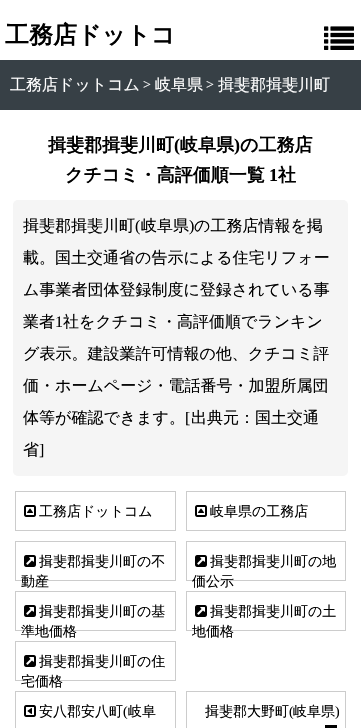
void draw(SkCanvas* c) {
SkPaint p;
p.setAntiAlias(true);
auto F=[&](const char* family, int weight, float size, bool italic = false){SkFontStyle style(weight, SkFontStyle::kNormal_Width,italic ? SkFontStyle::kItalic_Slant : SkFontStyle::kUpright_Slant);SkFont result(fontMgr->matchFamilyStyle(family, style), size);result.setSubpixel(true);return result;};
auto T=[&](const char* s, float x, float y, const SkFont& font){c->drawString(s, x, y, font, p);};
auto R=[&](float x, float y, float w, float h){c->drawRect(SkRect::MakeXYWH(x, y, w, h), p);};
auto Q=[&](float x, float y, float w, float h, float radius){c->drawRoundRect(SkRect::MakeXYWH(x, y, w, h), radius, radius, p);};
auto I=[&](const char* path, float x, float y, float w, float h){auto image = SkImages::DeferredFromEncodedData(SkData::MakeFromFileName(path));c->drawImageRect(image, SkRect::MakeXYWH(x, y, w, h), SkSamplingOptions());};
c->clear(0xffffffff);
auto f1 = F("WenQuanYi Zen Hei",700,24);
p.setColor(0xff000000);
T("工務店ドットコ",5,43,f1);
I("1.png",324,26,30,24);
p.setColor(0xff374046);
R(0,60,361,50);
auto f2 = F("WenQuanYi Zen Hei",500,16);
p.setColor(0xffffffff);
T("工務店ドットコム",10,90,f2);
auto f3 = F("Liberation Serif",400,14);
T(">",143,89,f3);
T("岐阜県",155,90,f2);
T(">",206,89,f3);
T("揖斐郡揖斐川町",218,90,f2);
auto f4 = F("WenQuanYi Zen Hei",700,18);
p.setColor(0xff000000);
T("揖斐郡揖斐川町",48,151,f4);
auto f5 = F("Liberation Serif",700,18);
T("(",174,151,f5);
T("岐阜県",180,151,f4);
T(")",234,151,f5);
T("の工務店",240,151,f4);
T("クチコミ・高評価順一覧",65,181,f4);
T("1",269,181,f5);
T("社",278,181,f4);
p.setColor(0xfff5f5f5);
Q(13,200,335,276,5);
p.setColor(0xff000000);
T("揖斐郡揖斐川町",23,231,f2);
auto f6 = F("Liberation Serif",400,16);
T("(",135,231,f6);
T("岐阜県",141,231,f2);
T(")",189,231,f6);
T("の工務店情報を掲",194,231,f2);
T("載。国土交通省の告示による住宅リフォー",23,263,f2);
T("ム事業者団体登録制度に登録されている事",23,295,f2);
T("業者",23,327,f2);
T("1",55,327,f6);
T("社をクチコミ・高評価順でランキン",63,327,f2);
T("グ表示。建設業許可情報の他、クチコミ評",23,359,f2);
T("価・ホームページ・電話番号・加盟所属団",23,391,f2);
T("体等が確認できます。",23,423,f2);
T("[",185,423,f6);
T("出典元：国土交通",191,423,f2);
T("省",23,455,f2);
T("]",39,455,f6);
p.setStroke(true);
p.setStrokeWidth(1);
p.setColor(0xffcccccc);
c->drawRect(SkRect::MakeXYWH(15.5,491.5,160,39),p);
I("2.png",24,505,12,12);
auto f7 = F("WenQuanYi Zen Hei",500,14);
p.setStroke(false);
p.setColor(0xff000000);
T("工務店ドットコム",39,516,f7);
p.setStroke(true);
p.setColor(0xffcccccc);
c->drawRect(SkRect::MakeXYWH(186.5,491.5,159,39),p);
I("2.png",195,505,12,12);
p.setStroke(false);
p.setColor(0xff000000);
T("岐阜県の工務店",210,516,f7);
p.setStroke(true);
p.setColor(0xffcccccc);
c->drawRect(SkRect::MakeXYWH(15.5,541.5,160,39),p);
I("3.png",24,555,12,12);
p.setStroke(false);
p.setColor(0xff000000);
T("揖斐郡揖斐川町の不",39,566,f7);
T("動産",21,586,f7);
p.setStroke(true);
p.setColor(0xffcccccc);
c->drawRect(SkRect::MakeXYWH(186.5,541.5,159,39),p);
I("3.png",195,555,12,12);
p.setStroke(false);
p.setColor(0xff000000);
T("揖斐郡揖斐川町の地",210,566,f7);
T("価公示",192,586,f7);
p.setStroke(true);
p.setColor(0xffcccccc);
c->drawRect(SkRect::MakeXYWH(15.5,591.5,160,39),p);
I("3.png",24,605,12,12);
p.setStroke(false);
p.setColor(0xff000000);
T("揖斐郡揖斐川町の基",39,616,f7);
T("準地価格",21,636,f7);
p.setStroke(true);
p.setColor(0xffcccccc);
c->drawRect(SkRect::MakeXYWH(186.5,591.5,159,39),p);
I("3.png",195,605,12,12);
p.setStroke(false);
p.setColor(0xff000000);
T("揖斐郡揖斐川町の土",210,616,f7);
T("地価格",192,636,f7);
p.setStroke(true);
p.setColor(0xffcccccc);
c->drawRect(SkRect::MakeXYWH(15.5,641.5,160,39),p);
I("3.png",24,655,12,12);
p.setStroke(false);
p.setColor(0xff000000);
T("揖斐郡揖斐川町の住",39,666,f7);
T("宅価格",21,686,f7);
p.setStroke(true);
p.setColor(0xffcccccc);
c->drawRect(SkRect::MakeXYWH(15.5,691.5,160,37),p);
I("4.png",24,705,12,12);
p.setStroke(false);
p.setColor(0xff000000);
T("安八郡安八町",39,716,f7);
T("(",123,716,f3);
T("岐阜",128,716,f7);
p.setStroke(true);
p.setColor(0xffcccccc);
c->drawRect(SkRect::MakeXYWH(186.5,691.5,159,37),p);
p.setStroke(false);
p.setColor(0xff000000);
T("揖斐郡大野町",205,716,f7);
T("(",289,716,f3);
T("岐阜県",293,716,f7);
T(")",335,716,f3);
R(325,725,12,3);
}
